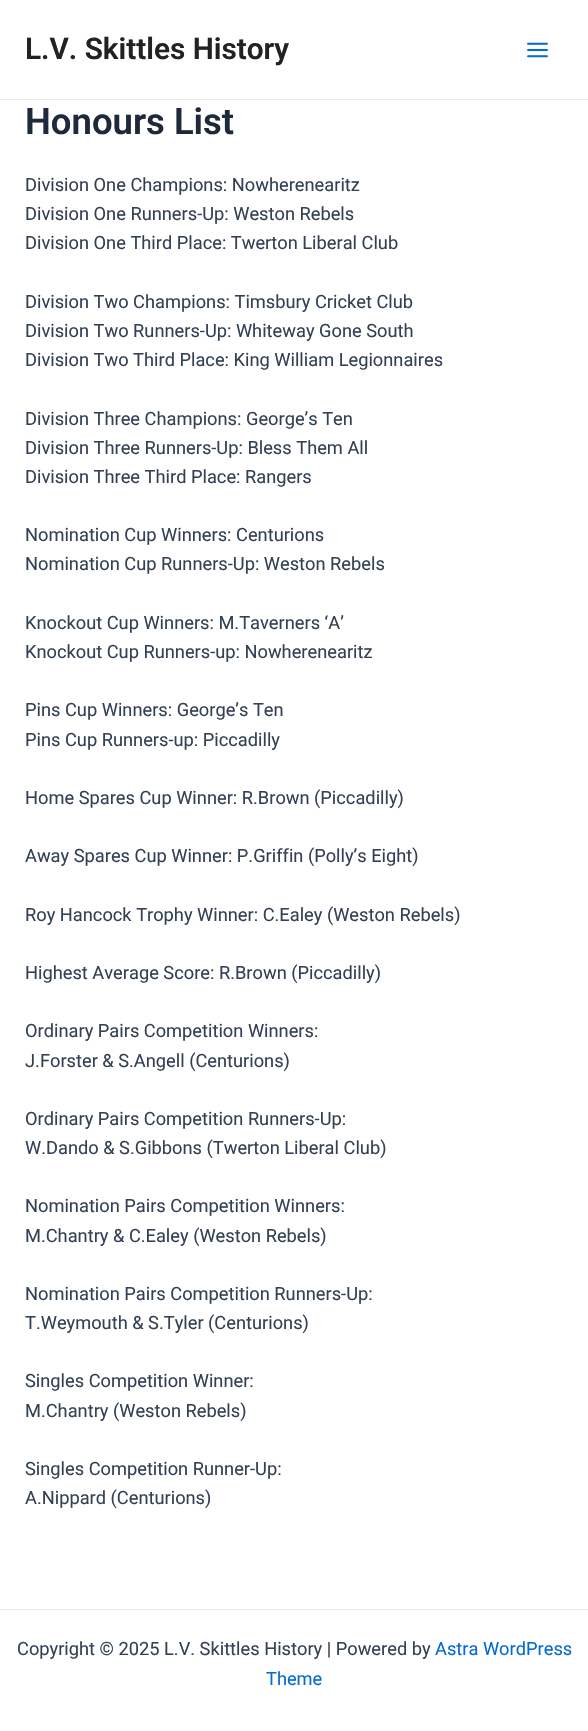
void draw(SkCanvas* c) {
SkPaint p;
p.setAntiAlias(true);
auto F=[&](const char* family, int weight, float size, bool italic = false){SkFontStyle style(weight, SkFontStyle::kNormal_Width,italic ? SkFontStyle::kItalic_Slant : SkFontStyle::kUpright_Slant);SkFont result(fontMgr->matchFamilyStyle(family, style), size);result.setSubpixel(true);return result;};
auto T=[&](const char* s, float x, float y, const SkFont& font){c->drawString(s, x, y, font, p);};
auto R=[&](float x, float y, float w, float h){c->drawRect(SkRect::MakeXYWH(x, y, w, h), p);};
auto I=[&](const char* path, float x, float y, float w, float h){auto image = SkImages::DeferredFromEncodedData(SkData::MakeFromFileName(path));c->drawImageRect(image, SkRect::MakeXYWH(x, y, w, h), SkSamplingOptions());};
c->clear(0xffffffff);
p.setColor(0xffeaeaea);
R(0,99,588,1);
auto f1 = F("Roboto",600,29.75);
p.setColor(0xff222222);
T("L.V. Skittles History",25,59,f1);
I("1.png",527,42,21,16);
auto f2 = F("Roboto",600,36.5);
p.setColor(0xff1e293b);
T("Honours List",25,134,f2);
auto f3 = F("Roboto",400,18.25);
p.setColor(0xff334155);
T("Division One Champions: Nowherenearitz",25,191,f3);
T("Division One Runners-Up: Weston Rebels",25,220,f3);
T("Division One Third Place: Twerton Liberal Club",25,249,f3);
T("Division Two Champions: Timsbury Cricket Club",25,308,f3);
T("Division Two Runners-Up: Whiteway Gone South",25,337,f3);
T("Division Two Third Place: King William Legionnaires",25,366,f3);
T("Division Three Champions: George’s Ten",25,425,f3);
T("Division Three Runners-Up: Bless Them All",25,454,f3);
T("Division Three Third Place: Rangers",25,483,f3);
T("Nomination Cup Winners: Centurions",25,541,f3);
T("Nomination Cup Runners-Up: Weston Rebels",25,570,f3);
T("Knockout Cup Winners: M.Taverners ‘A’",25,629,f3);
T("Knockout Cup Runners-up: Nowherenearitz",25,658,f3);
T("Pins Cup Winners: George’s Ten",25,716,f3);
T("Pins Cup Runners-up: Piccadilly",25,746,f3);
T("Home Spares Cup Winner: R.Brown (Piccadilly)",25,804,f3);
T("Away Spares Cup Winner: P.Griffin (Polly’s Eight)",25,862,f3);
T("Roy Hancock Trophy Winner: C.Ealey (Weston Rebels)",25,921,f3);
T("Highest Average Score: R.Brown (Piccadilly)",25,979,f3);
T("Ordinary Pairs Competition Winners:",25,1037,f3);
T("J.Forster & S.Angell (Centurions)",25,1067,f3);
T("Ordinary Pairs Competition Runners-Up:",25,1125,f3);
T("W.Dando & S.Gibbons (Twerton Liberal Club)",25,1154,f3);
T("Nomination Pairs Competition Winners:",25,1212,f3);
T("M.Chantry & C.Ealey (Weston Rebels)",25,1242,f3);
T("Nomination Pairs Competition Runners-Up:",25,1300,f3);
T("T.Weymouth & S.Tyler (Centurions)",25,1329,f3);
T("Singles Competition Winner:",25,1387,f3);
T("M.Chantry (Weston Rebels)",25,1417,f3);
T("Singles Competition Runner-Up:",25,1475,f3);
T("A.Nippard (Centurions)",25,1504,f3);
p.setColor(0xffe2e8f0);
R(0,1609,588,1);
p.setColor(0xff334155);
T("Copyright © 2025 L.V. Skittles History | Powered by",17,1655,f3);
p.setColor(0xff046bd2);
T("Astra WordPress",435,1655,f3);
T("Theme",266,1685,f3);
}
